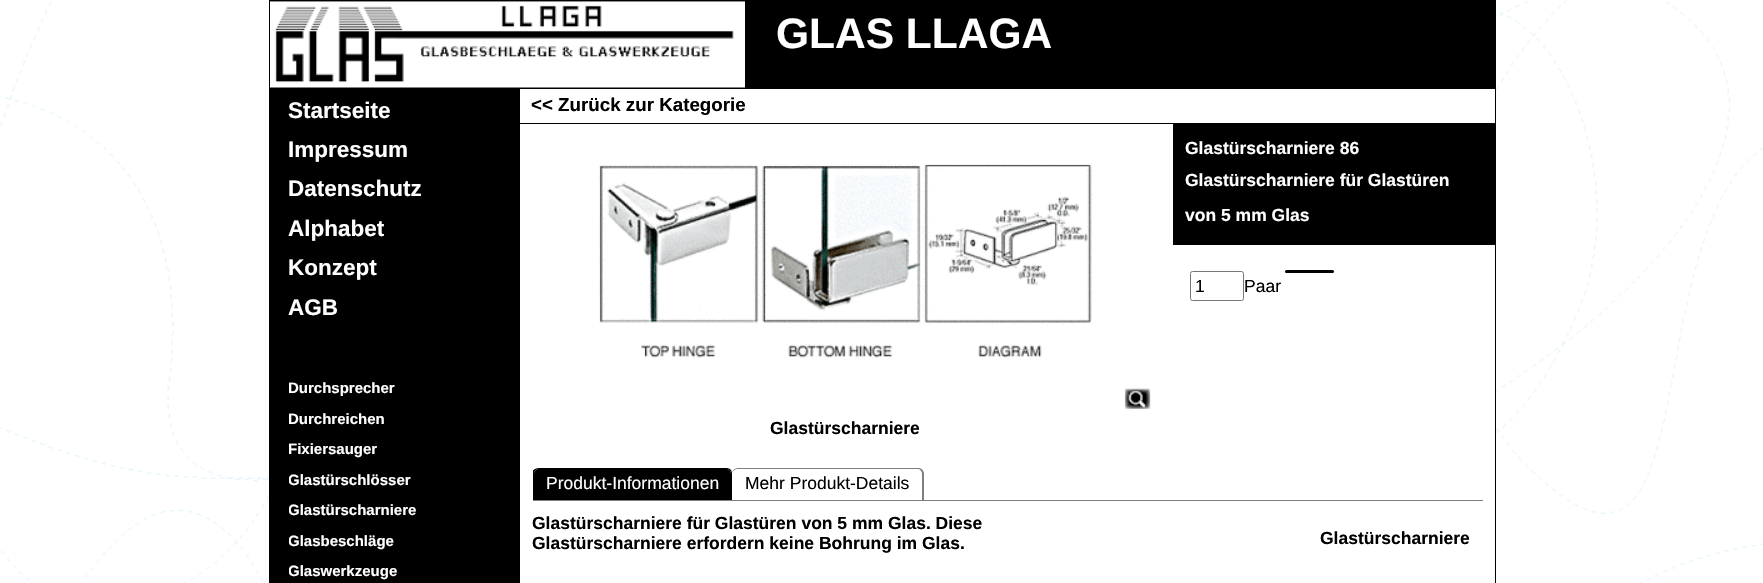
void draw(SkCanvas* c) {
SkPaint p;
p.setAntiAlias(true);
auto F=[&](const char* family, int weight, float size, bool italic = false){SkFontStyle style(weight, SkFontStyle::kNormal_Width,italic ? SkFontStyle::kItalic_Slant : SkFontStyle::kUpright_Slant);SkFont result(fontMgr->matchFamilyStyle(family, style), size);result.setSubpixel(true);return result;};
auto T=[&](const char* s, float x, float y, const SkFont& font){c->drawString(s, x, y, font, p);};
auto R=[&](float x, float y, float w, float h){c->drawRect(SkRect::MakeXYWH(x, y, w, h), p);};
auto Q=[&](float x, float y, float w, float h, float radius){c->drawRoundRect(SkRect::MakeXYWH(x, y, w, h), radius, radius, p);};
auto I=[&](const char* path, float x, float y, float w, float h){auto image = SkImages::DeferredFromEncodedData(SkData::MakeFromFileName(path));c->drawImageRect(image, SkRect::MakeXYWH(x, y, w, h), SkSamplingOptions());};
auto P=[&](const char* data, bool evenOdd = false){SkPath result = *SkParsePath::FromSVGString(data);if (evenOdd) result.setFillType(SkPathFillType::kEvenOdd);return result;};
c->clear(0xffffffff);
I("1.png",0,0,1763,583);
p.setStroke(true);
p.setStrokeWidth(1);
p.setColor(0xff000000);
c->drawRect(SkRect::MakeXYWH(269.5,.5,1226,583),p);
p.setStroke(false);
R(270,1,1225,88);
I("2.png",270,1,475,87);
auto f1 = F("Liberation Sans",700,42.5);
p.setColor(0xffffffff);
T("GLAS LLAGA",776,48,f1);
p.setColor(0xff000000);
R(270,89,250,494);
auto f2 = F("Liberation Sans",700,22.5);
p.setColor(0xffffffff);
T("Startseite",288,118,f2);
T("Impressum",288,157,f2);
T("Datenschutz",288,196,f2);
T("Alphabet",288,236,f2);
T("Konzept",288,275,f2);
T("AGB",288,315,f2);
auto f3 = F("Liberation Sans",700,15);
T("Durchsprecher",288,393,f3);
T("Durchreichen",288,424,f3);
T("Fixiersauger",288,454,f3);
c->save();
c->clipRect(SkRect::MakeXYWH(289,471,202,18));
T("Glastürschlösser",288,485,f3);
c->restore();
c->save();
c->clipRect(SkRect::MakeXYWH(289,501,202,19));
T("Glastürscharniere",288,515,f3);
c->restore();
c->save();
c->clipRect(SkRect::MakeXYWH(289,533,202,17));
T("Glasbeschläge",288,546,f3);
c->restore();
c->save();
c->clipRect(SkRect::MakeXYWH(289,563,202,17));
T("Glaswerkzeuge",288,576,f3);
c->restore();
R(520,89,975,494);
p.setColor(0xff000000);
R(520,123,975,1);
auto f4 = F("Liberation Sans",700,18.75);
T("<< Zurück zur Kategorie",531,111,f4);
R(1173,124,322,121);
auto f5 = F("Liberation Sans",700,17.5);
p.setColor(0xffffffff);
T("Glastürscharniere 86",1185,154,f5);
T("Glastürscharniere für Glastüren",1185,186,f5);
T("von 5 mm Glas",1185,221,f5);
p.setColor(0xff000000);
Q(1285,270,49,3,1.5);
p.setStroke(true);
p.setColor(0xff767676);
c->drawRoundRect(SkRect::MakeXYWH(1190.5,271.5,53,29),2,2,p);
auto f6 = F("Liberation Sans",400,17.5);
p.setStroke(false);
p.setColor(0xff000000);
T("1",1195,292,f6);
T("Paar",1244,292,f6);
I("3.png",597,164,497,195);
I("4.png",1124,388,27,21);
T("Glastürscharniere",770,434,f5);
p.setColor(0xff7f7f7f);
R(533,500,950,1);
p.setColor(0xff000000);
c->drawPath(P("M539 469h187c3 0 5 2 5 5v26h-197v-26c0-3 2-5 5-5z"),p);
c->save();
c->clipRect(SkRect::MakeXYWH(533,468,950,32));
c->drawPath(P("M539 468h187c4 0 6 2 6 6v26h-200v-26c0-4 3-6 7-6zm0 1h187c3 0 5 2 5 5v26h-197v-26c0-3 2-5 5-5z",true),p);
c->restore();
p.setColor(0xffffffff);
T("Produkt-Informationen",546,489,f6);
p.setColor(0xff7f7f7f);
c->drawPath(P("M739 468h179c3 0 6 2 6 6v26h-192v-26c0-4 3-6 7-6zm0 1h179c2 0 4 2 4 5v26h-190v-26c0-3 3-5 7-5z",true),p);
p.setColor(0xff000000);
T("Mehr Produkt-Details",745,489,f6);
T("Glastürscharniere für Glastüren von 5 mm Glas. Diese",532,529,f5);
T("Glastürscharniere erfordern keine Bohrung im Glas.",532,549,f5);
T("Glastürscharniere",1320,544,f5);
}
